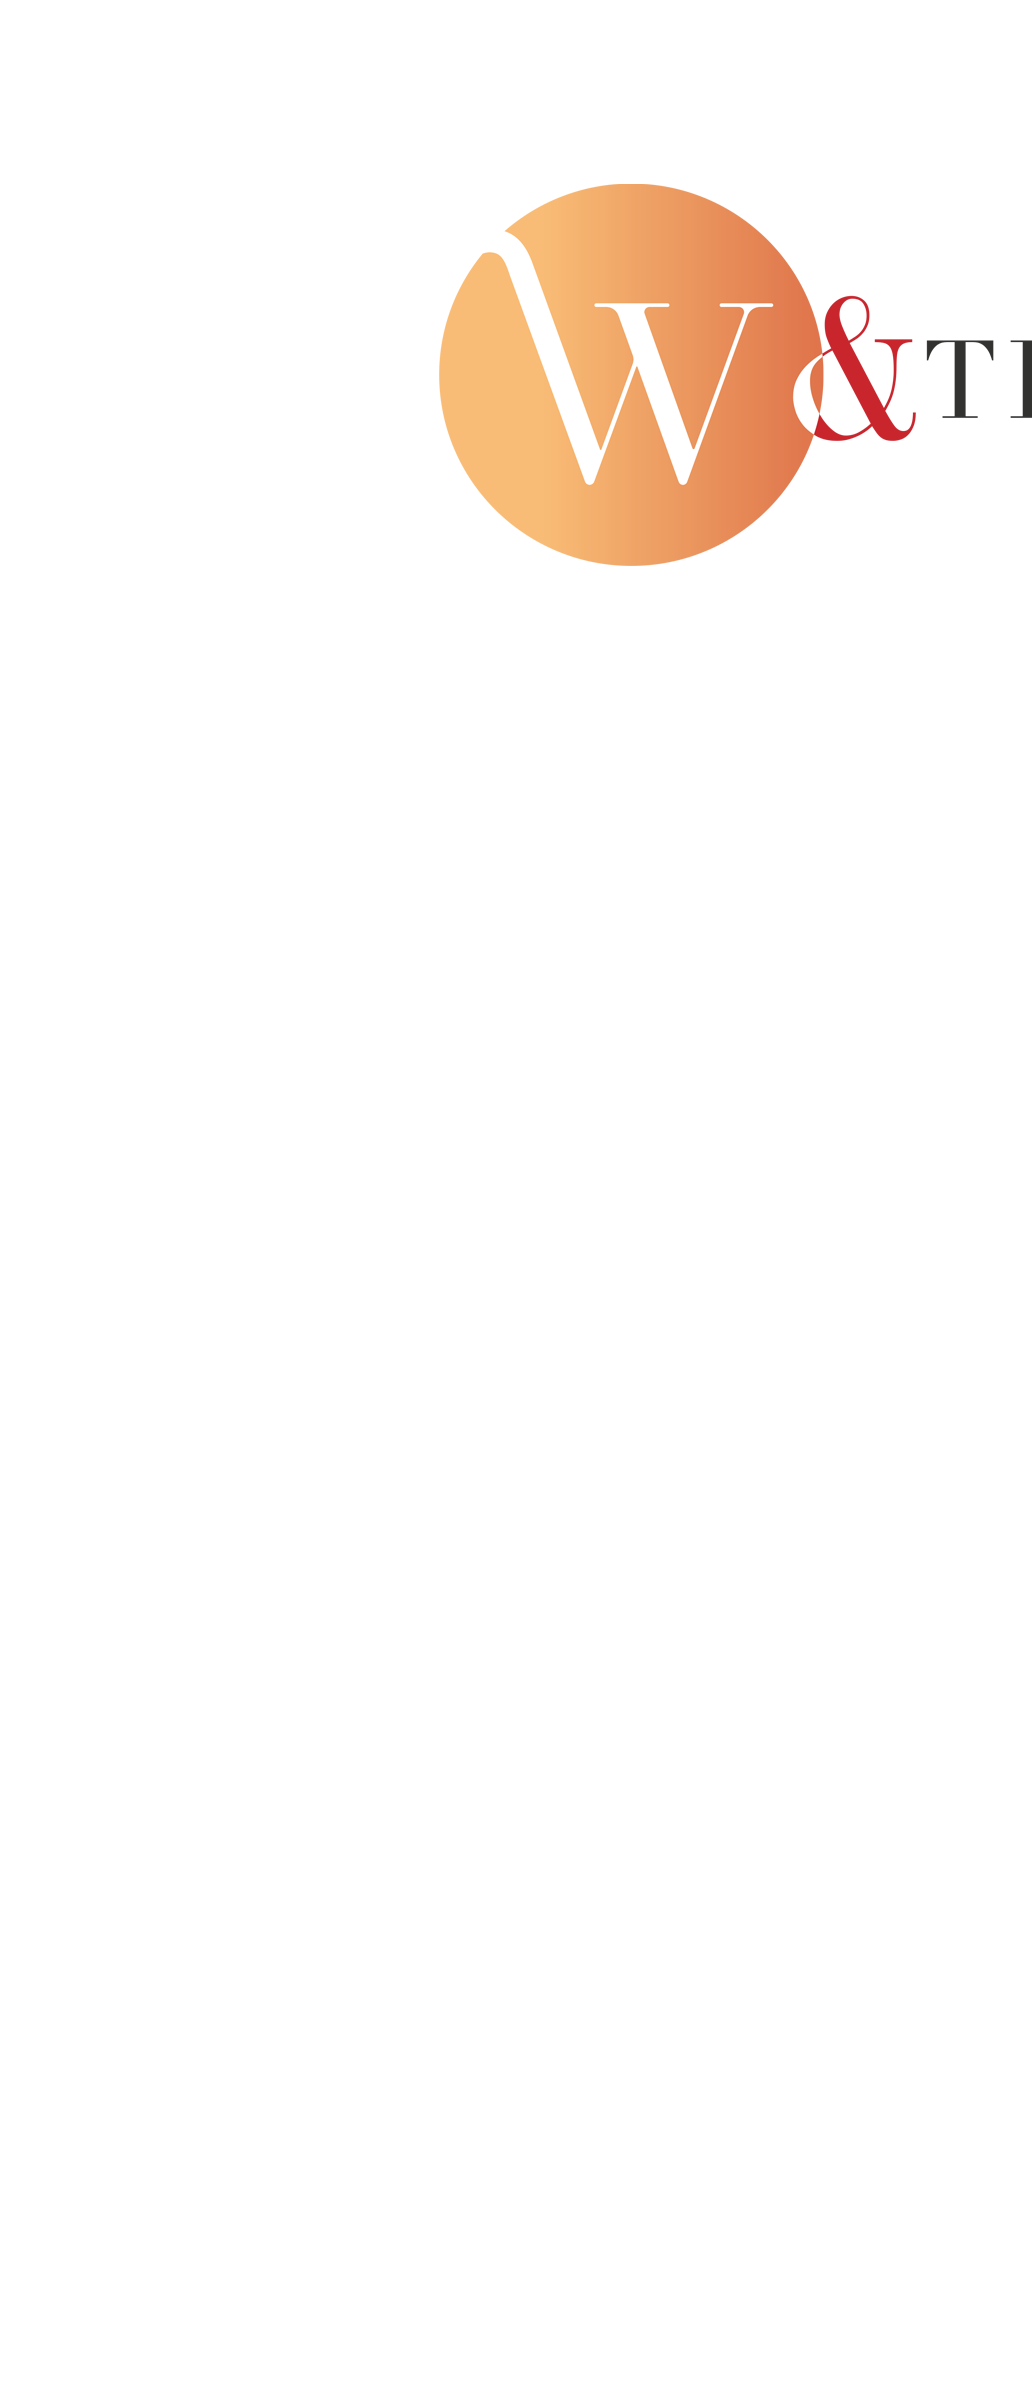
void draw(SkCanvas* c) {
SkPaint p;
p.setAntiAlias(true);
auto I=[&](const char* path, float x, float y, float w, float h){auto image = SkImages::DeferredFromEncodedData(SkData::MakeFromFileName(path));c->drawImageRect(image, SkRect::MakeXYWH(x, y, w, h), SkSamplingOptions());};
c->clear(0xffffffff);
I("1.png",439,184,593,382);
}
